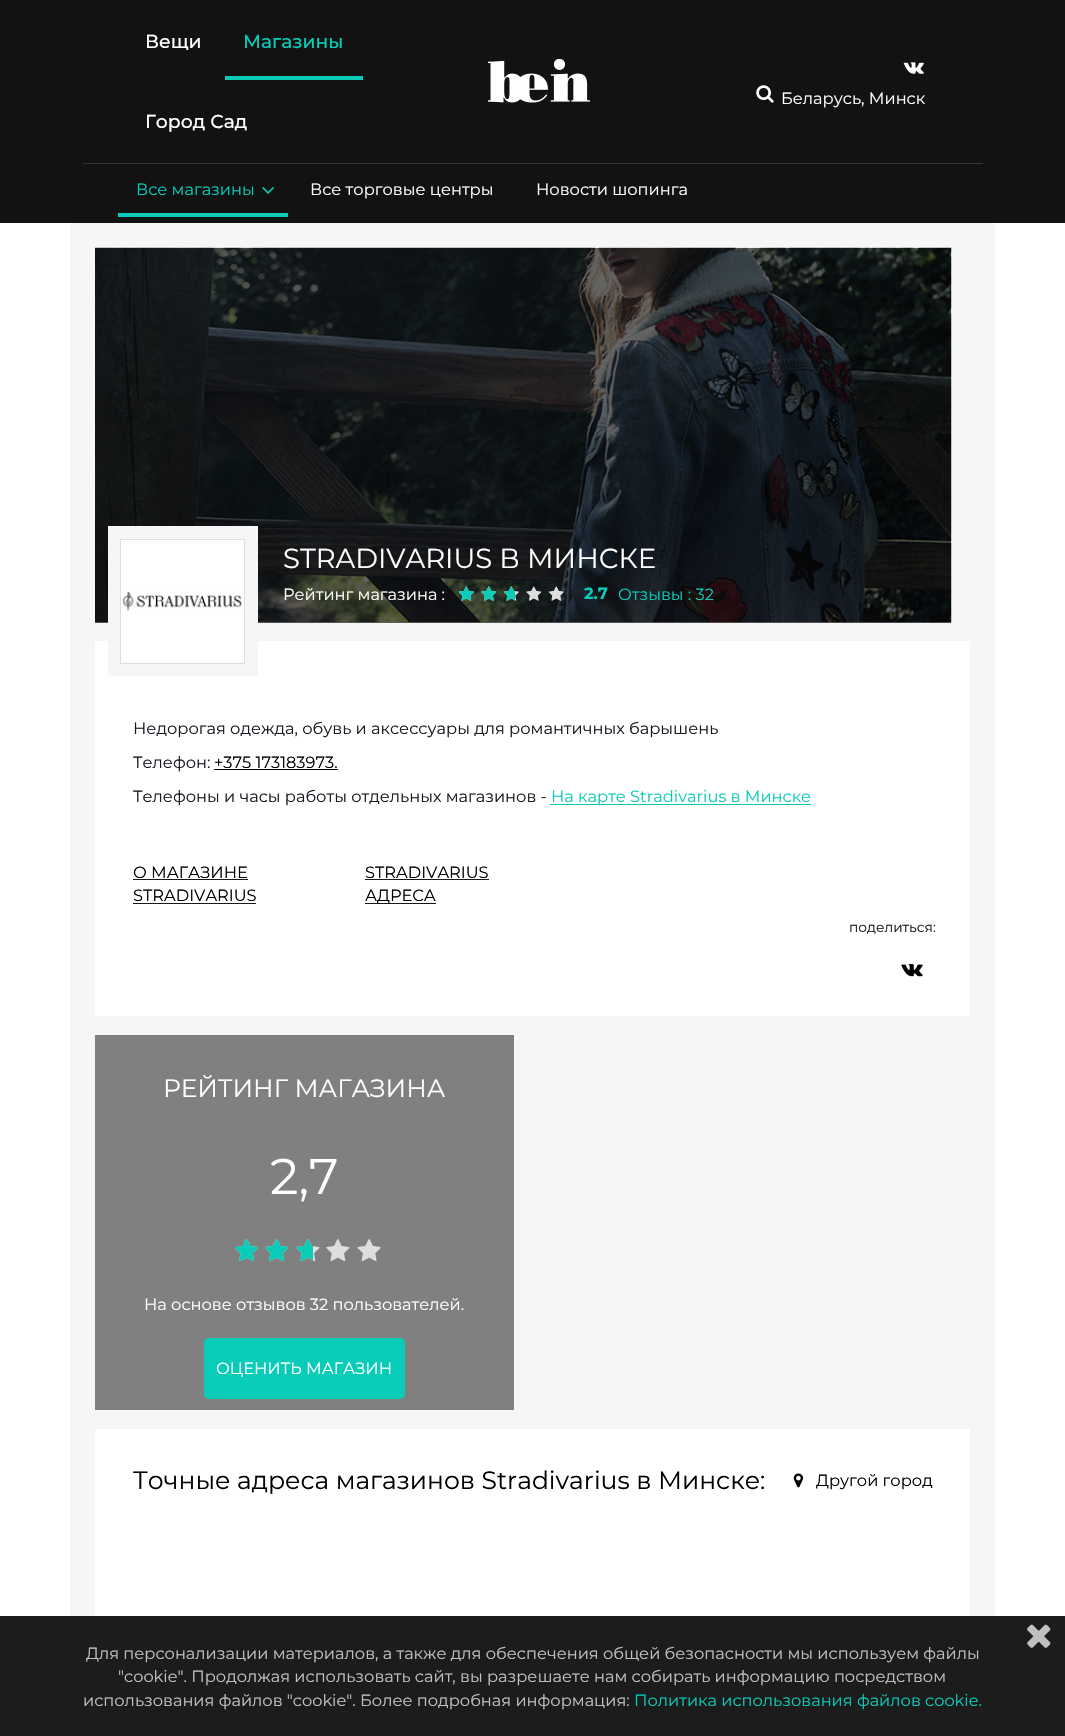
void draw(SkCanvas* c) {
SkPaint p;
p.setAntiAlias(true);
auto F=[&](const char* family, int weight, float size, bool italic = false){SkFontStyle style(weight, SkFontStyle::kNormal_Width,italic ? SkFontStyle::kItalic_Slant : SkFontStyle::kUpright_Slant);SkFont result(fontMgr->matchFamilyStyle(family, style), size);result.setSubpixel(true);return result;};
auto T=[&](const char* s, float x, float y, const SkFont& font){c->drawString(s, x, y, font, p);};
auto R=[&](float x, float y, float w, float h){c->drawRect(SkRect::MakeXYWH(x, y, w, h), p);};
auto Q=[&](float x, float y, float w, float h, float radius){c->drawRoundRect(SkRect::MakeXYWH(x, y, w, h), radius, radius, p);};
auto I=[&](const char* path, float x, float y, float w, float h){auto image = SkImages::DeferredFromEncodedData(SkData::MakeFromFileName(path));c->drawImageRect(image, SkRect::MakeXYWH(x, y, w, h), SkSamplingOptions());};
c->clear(0xffffffff);
p.setColor(0xff121212);
R(0,0,1065,223);
auto f1 = F("Montserrat",500,18.75);
p.setColor(0xffffffff);
T("Вещи",145,48,f1);
p.setColor(0xff09ccb8);
R(225,76,138,4);
T("Магазины",243,48,f1);
p.setColor(0xffffffff);
T("Город Сад",145,128,f1);
I("1.png",488,59,102,44);
I("2.png",756,85,18,18);
I("3.png",903,62,21,12);
auto f2 = F("Montserrat",400,16.25);
T("Беларусь, Минск",781,104,f2);
p.setColor(0xff2e343a);
R(83,163,900,1);
p.setColor(0xff09ccb8);
R(118,213,170,4);
T("Все магазины",136,195,f2);
I("4.png",262,187,12,7);
p.setColor(0xffffffff);
T("Все торговые центры",310,195,f2);
T("Новости шопинга",536,195,f2);
p.setColor(0xfff6f6f6);
R(70,223,925,1393);
p.setColor(0xff626262);
R(95,622,856,1);
I("5.png",95,247,857,376);
p.setColor(0xffffffff);
R(95,641,875,375);
p.setColor(0xfff6f6f6);
R(108,526,150,150);
p.setStroke(true);
p.setStrokeWidth(1);
p.setColor(0xffdedede);
c->drawRect(SkRect::MakeXYWH(120.5,539.5,124,124),p);
I("6.png",121,540,123,123);
auto f3 = F("Montserrat",400,27.5);
p.setStroke(false);
p.setColor(0xffffffff);
T("STRADIVARIUS В МИНСКЕ",283,568,f3);
T("Рейтинг магазина :",283,600,f2);
I("7.png",458,586,16,15);
I("8.png",481,586,16,15);
I("9.png",503,586,16,15);
I("10.png",526,586,16,15);
I("11.png",548,586,16,15);
I("12.png",458,586,16,15);
I("13.png",481,586,16,15);
I("14.png",503,586,12,15);
auto f4 = F("Montserrat",700,16.25);
p.setColor(0xff09ccb8);
T("2.7",584,599,f4);
T("Отзывы : 32",618,600,f2);
p.setColor(0xff1b1721);
T("Недорогая одежда, обувь и аксессуары для романтичных барышень",133,734,f2);
T("Телефон:",133,768,f2);
p.setColor(0xff000000);
T("+375 173183973.",214,768,f2);
R(214,769,124,1);
p.setColor(0xff1b1721);
T("Телефоны и часы работы отдельных магазинов -",133,802,f2);
p.setColor(0xff09ccb8);
R(550,804,261,1);
T("На карте Stradivarius в Минске",551,802,f2);
p.setColor(0xff000000);
T("О МАГАЗИНЕ",133,878,f2);
p.setColor(0xff1b1721);
R(133,879,115,1);
p.setColor(0xff000000);
T("STRADIVARIUS",133,901,f2);
p.setColor(0xff1b1721);
R(133,903,123,1);
p.setColor(0xff000000);
T("STRADIVARIUS",365,878,f2);
p.setColor(0xff1b1721);
R(365,879,124,1);
R(365,903,71,1);
p.setColor(0xff000000);
T("АДРЕСА",365,901,f2);
auto f5 = F("Montserrat",400,13.75);
p.setColor(0xff1b1721);
T("поделиться:",849,932,f5);
I("15.png",901,964,22,13);
p.setColor(0xff808080);
R(95,1035,419,375);
auto f6 = F("Montserrat",400,25);
p.setColor(0xffffffff);
T("РЕЙТИНГ МАГАЗИНА",163,1097,f6);
auto f7 = F("Montserrat",400,50);
T("2,7",270,1194,f7);
I("16.png",235,1239,24,23);
I("16.png",265,1239,24,23);
I("17.png",296,1239,24,23);
I("17.png",326,1239,24,23);
I("18.png",357,1239,24,23);
I("19.png",235,1239,24,23);
I("19.png",265,1239,24,23);
I("20.png",296,1239,17,23);
T("На основе отзывов 32 пользователей.",144,1310,f2);
p.setColor(0xff09ccb8);
Q(204,1338,201,61,5);
p.setColor(0xffffffff);
T("ОЦЕНИТЬ МАГАЗИН",216,1374,f2);
R(95,1429,875,187);
p.setColor(0xff000000);
T("Точные адреса магазинов Stradivarius в Минске:",133,1489,f6);
I("21.png",793,1473,10,15);
T("Другой город",816,1486,f2);
p.setColor(0xff1c1c1c);
R(0,1616,1065,120);
I("22.png",1027,1624,24,24);
p.setColor(0xffc0c0c0);
T("Для персонализации материалов, а также для обеспечения общей безопасности мы используем файлы",86,1659,f2);
T("\"cookie\". Продолжая использовать сайт, вы разрешаете нам собирать информацию посредством",118,1682,f2);
T("использования файлов \"cookie\". Более подробная информация:",83,1706,f2);
p.setColor(0xff09ccb8);
T("Политика использования файлов cookie.",634,1706,f2);
}
